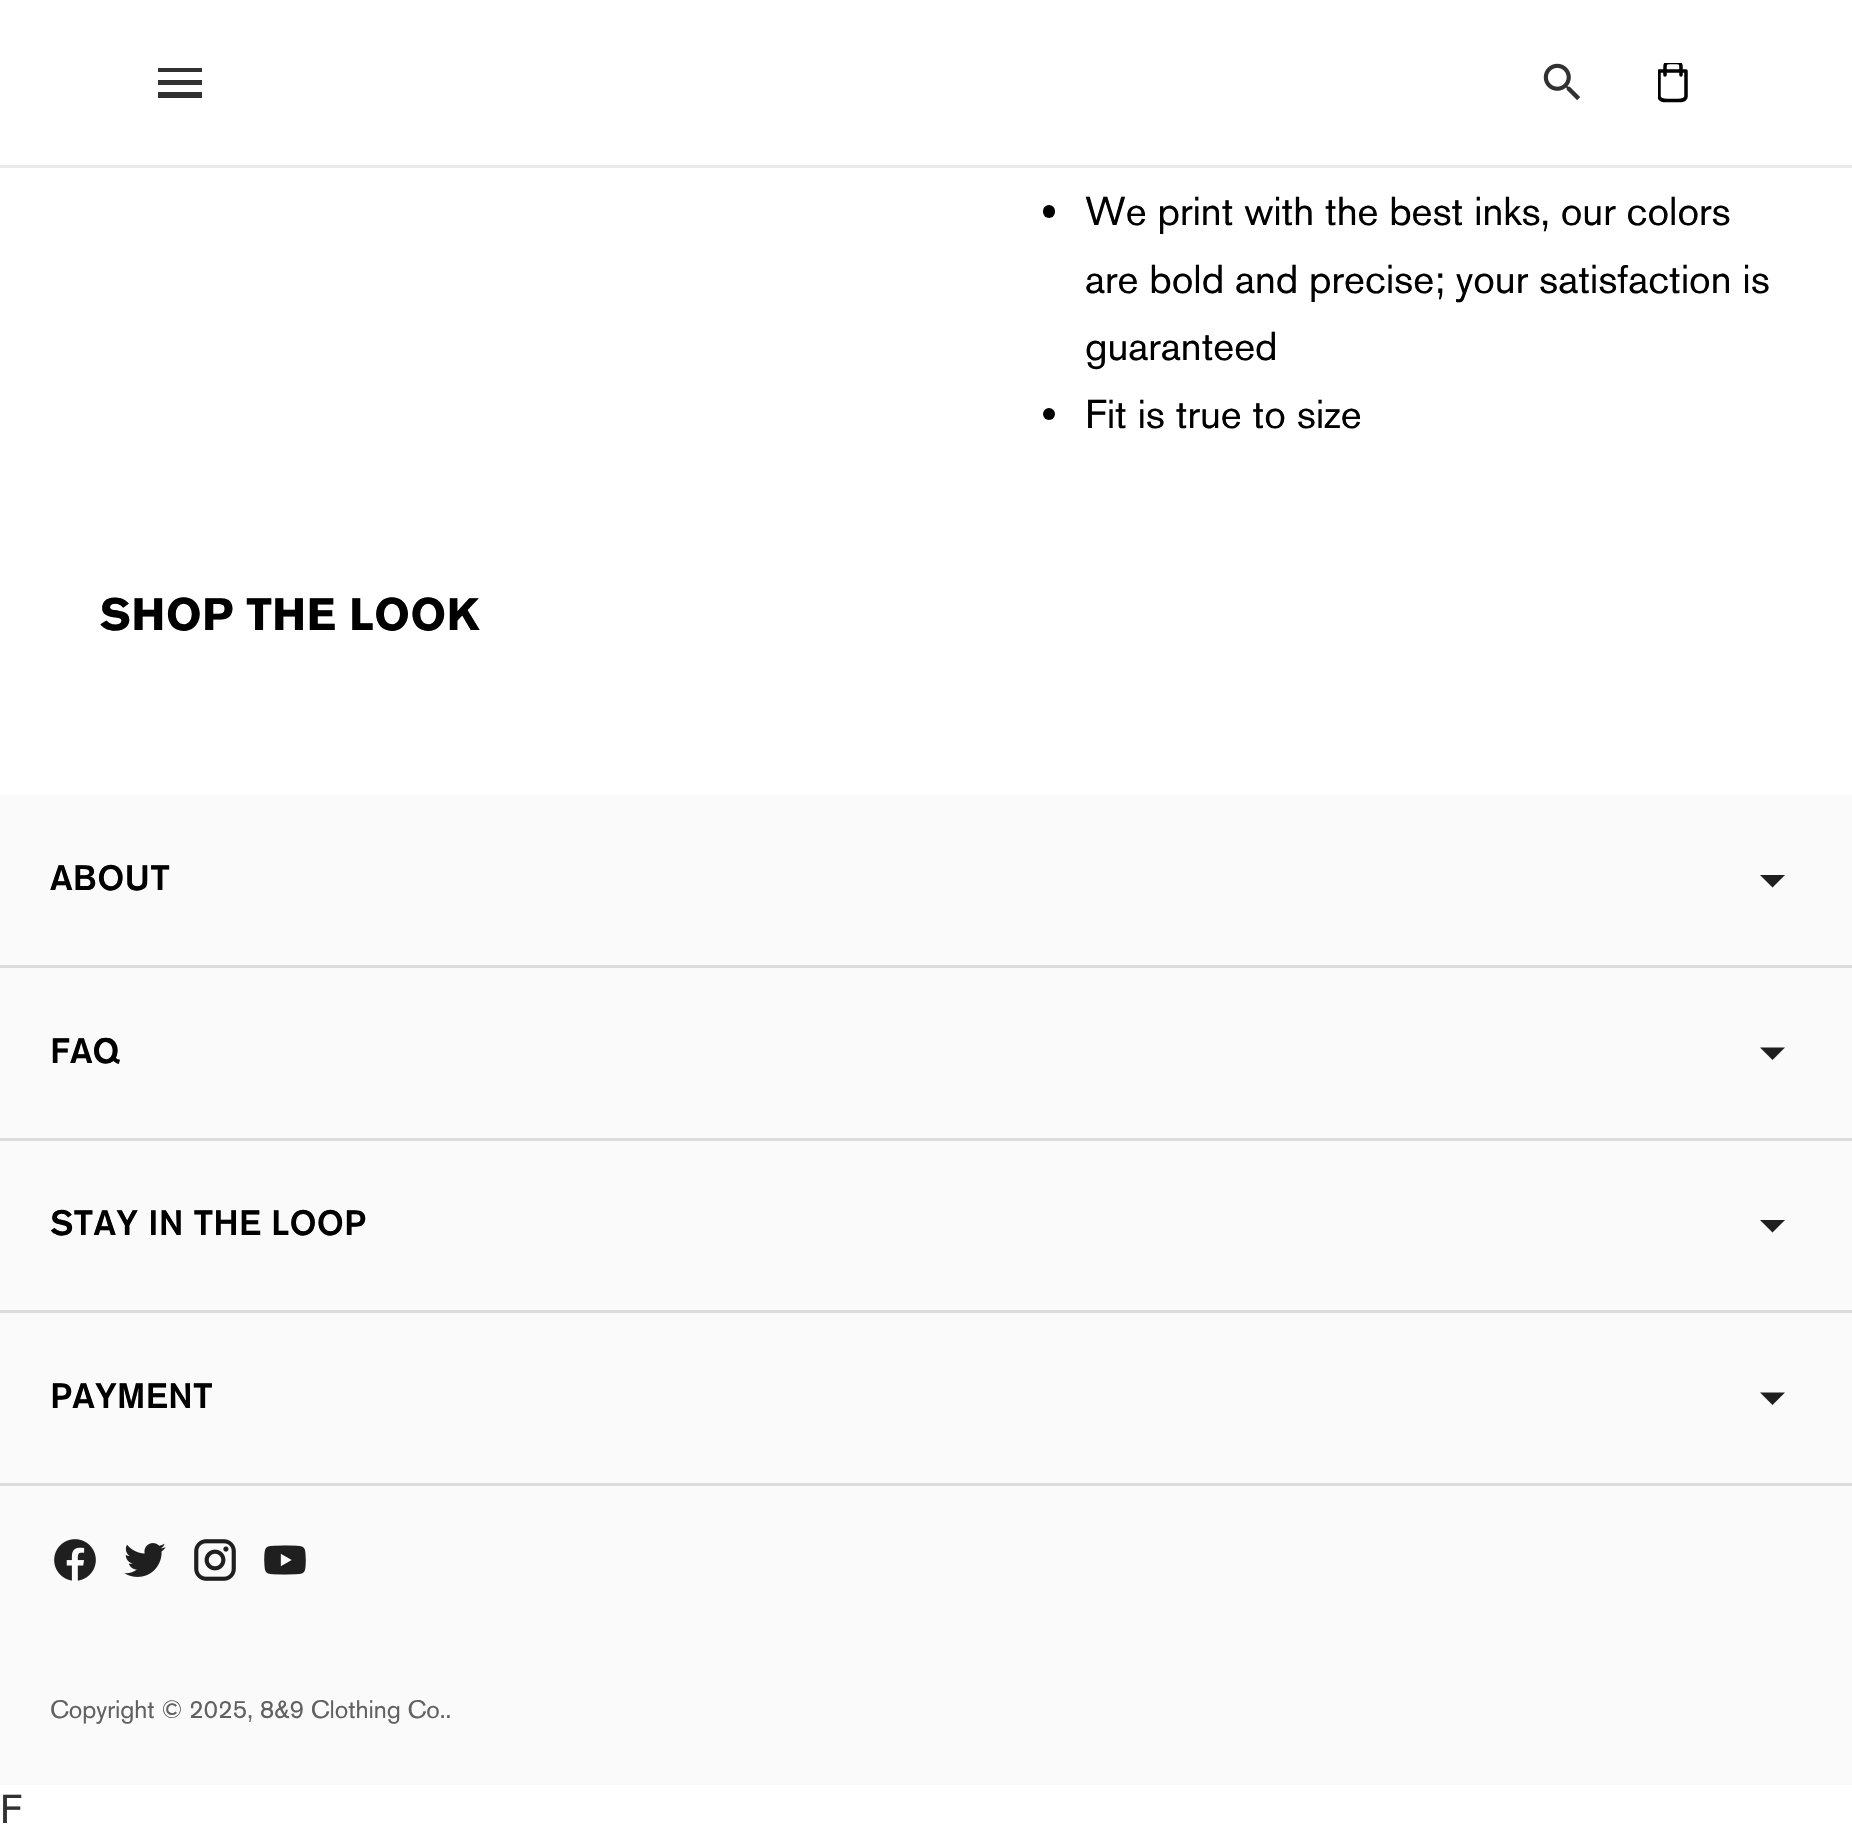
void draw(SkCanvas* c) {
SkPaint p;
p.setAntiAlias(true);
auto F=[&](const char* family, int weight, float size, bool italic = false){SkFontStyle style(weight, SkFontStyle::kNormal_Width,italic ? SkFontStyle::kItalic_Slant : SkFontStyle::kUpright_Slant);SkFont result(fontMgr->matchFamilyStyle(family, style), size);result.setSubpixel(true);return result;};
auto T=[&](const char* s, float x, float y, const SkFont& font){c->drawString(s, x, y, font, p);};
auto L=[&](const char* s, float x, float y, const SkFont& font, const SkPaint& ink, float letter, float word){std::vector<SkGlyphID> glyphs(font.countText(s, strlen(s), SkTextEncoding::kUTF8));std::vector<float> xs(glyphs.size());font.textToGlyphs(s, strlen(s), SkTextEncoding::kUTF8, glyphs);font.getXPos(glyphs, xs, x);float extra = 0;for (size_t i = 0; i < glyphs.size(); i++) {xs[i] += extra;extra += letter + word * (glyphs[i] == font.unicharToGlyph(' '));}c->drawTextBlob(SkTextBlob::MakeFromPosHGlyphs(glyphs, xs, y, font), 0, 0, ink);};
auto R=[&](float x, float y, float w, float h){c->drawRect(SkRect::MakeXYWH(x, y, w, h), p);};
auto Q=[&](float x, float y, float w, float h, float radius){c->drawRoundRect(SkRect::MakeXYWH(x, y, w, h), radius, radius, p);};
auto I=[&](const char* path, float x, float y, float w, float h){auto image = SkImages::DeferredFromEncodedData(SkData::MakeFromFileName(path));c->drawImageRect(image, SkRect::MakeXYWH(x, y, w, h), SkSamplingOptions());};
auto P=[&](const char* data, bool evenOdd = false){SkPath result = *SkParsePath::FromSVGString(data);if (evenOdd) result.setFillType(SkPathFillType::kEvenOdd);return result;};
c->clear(0xffffffff);
p.setColor(0xffeaeaea);
R(0,165,1852,3);
p.setColor(0xff313131);
c->drawPath(P("M158 98h44v-6h-44zm0-13h44v-5h-44zm0-17v4h44v-4z"),p);
I("1.png",1543,63,38,38);
c->save();
c->clipRect(SkRect::MakeXYWH(1658,63,30,40));
p.setStroke(true);
p.setStrokeWidth(3.5);
p.setStrokeCap(SkPaint::kRound_Cap);
p.setStrokeJoin(SkPaint::kRound_Join);
p.setColor(0xff000000);
c->drawPath(P("M1659 71h27v25.5c-.5 4-4.5 4-8 4h-11c-3.5 0-7.5 0-8-4zm6 4v-8c0-5.5 3-4.5 8-4.5c5 0 8-1 8 4.5v8"),p);
c->restore();
p.setStroke(false);
Q(1043,205,12,13,6);
auto f1 = F("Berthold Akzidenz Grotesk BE",400,40);
T("We print with the best inks, our colors",1085,225,f1);
T("are bold and precise; your satisfaction is",1085,293,f1);
T("guaranteed",1085,360,f1);
c->drawCircle(1049,414,6,p);
T("Fit is true to size",1085,428,f1);
auto f2 = F("Berthold Akzidenz Grotesk BE",700,45);
L("SHOP THE LOOK",100,630,f2,p,.6,0);
p.setColor(0xfffafafa);
R(0,795,1852,990);
p.setColor(0xffdcdcdc);
R(0,965,1852,3);
auto f3 = F("Berthold Akzidenz Grotesk BE",500,35);
p.setColor(0xff000000);
L("ABOUT",50,890,f3,p,.25,0);
p.setColor(0xff1f1f1f);
c->drawPath(P("M1760 875l12.5 12.5l12.5-12.5z"),p);
p.setColor(0xffdcdcdc);
R(0,1138,1852,3);
p.setColor(0xff000000);
L("FAQ",50,1063,f3,p,.25,0);
p.setColor(0xff1f1f1f);
c->drawPath(P("M1760 1047.5l12.5 12.5l12.5-12.5z"),p);
p.setColor(0xffdcdcdc);
R(0,1310,1852,3);
p.setColor(0xff000000);
L("STAY IN THE LOOP",50,1235,f3,p,.25,0);
p.setColor(0xff1f1f1f);
c->drawPath(P("M1760 1220l12.5 12.5l12.5-12.5z"),p);
p.setColor(0xffdcdcdc);
R(0,1483,1852,3);
p.setColor(0xff000000);
L("PAYMENT",50,1408,f3,p,.25,0);
p.setColor(0xff1f1f1f);
c->drawPath(P("M1760 1392.5l12.5 12.5l12.5-12.5z"),p);
I("2.png",54,1539,42,42);
I("3.png",124,1543,42,34);
I("4.png",194,1539,42,42);
I("5.png",264,1545,42,30);
auto f4 = F("Berthold Akzidenz Grotesk BE",400,25);
p.setColor(0xff616161);
T("Copyright © 2025, 8&9 Clothing Co..",50,1718,f4);
p.setColor(0xff313131);
T("F",0,1823,f1);
}
